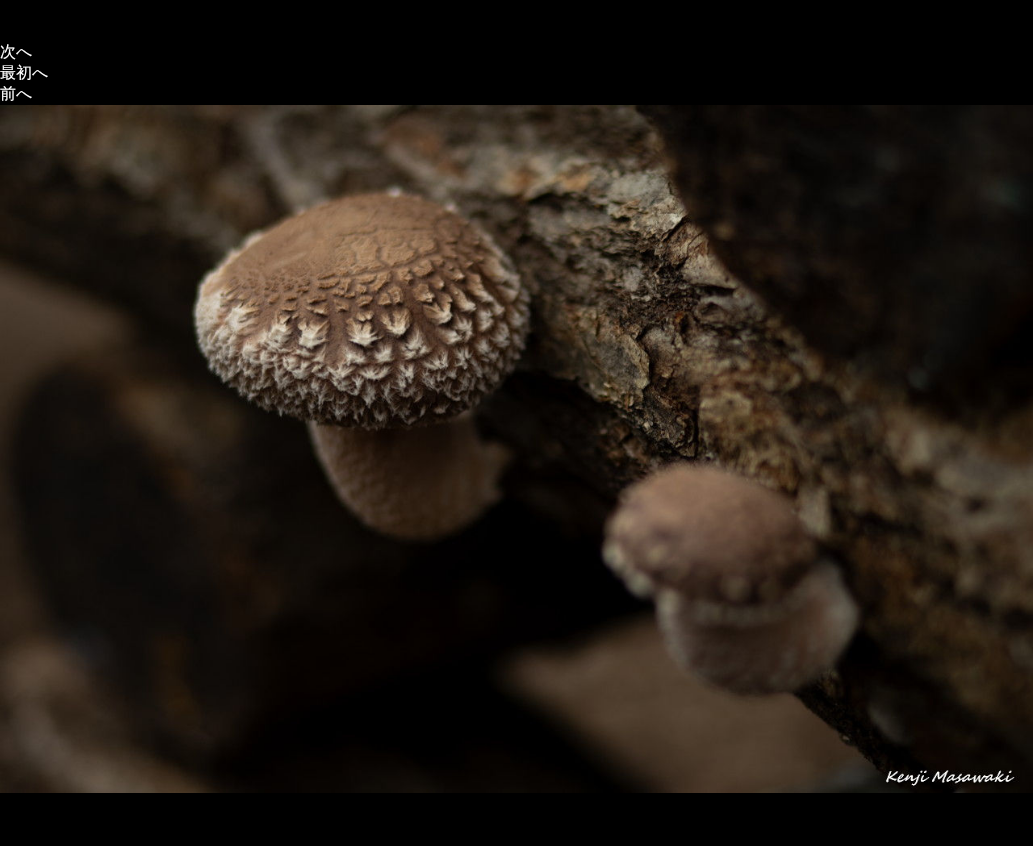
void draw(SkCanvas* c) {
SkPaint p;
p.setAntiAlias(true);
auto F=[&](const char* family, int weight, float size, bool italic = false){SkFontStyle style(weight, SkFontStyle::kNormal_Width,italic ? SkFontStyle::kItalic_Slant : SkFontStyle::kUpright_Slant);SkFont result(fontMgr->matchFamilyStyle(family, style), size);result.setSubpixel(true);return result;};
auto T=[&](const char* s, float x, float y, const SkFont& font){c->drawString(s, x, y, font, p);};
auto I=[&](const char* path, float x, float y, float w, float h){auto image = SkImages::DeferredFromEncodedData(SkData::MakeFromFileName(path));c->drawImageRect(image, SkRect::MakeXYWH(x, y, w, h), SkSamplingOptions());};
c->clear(0xff000000);
auto f1 = F("WenQuanYi Zen Hei",500,16);
p.setColor(0xffffffff);
T("次へ",0,57,f1);
T("最初へ",0,78,f1);
T("前へ",0,99,f1);
I("1.png",0,105,1033,688);
}
